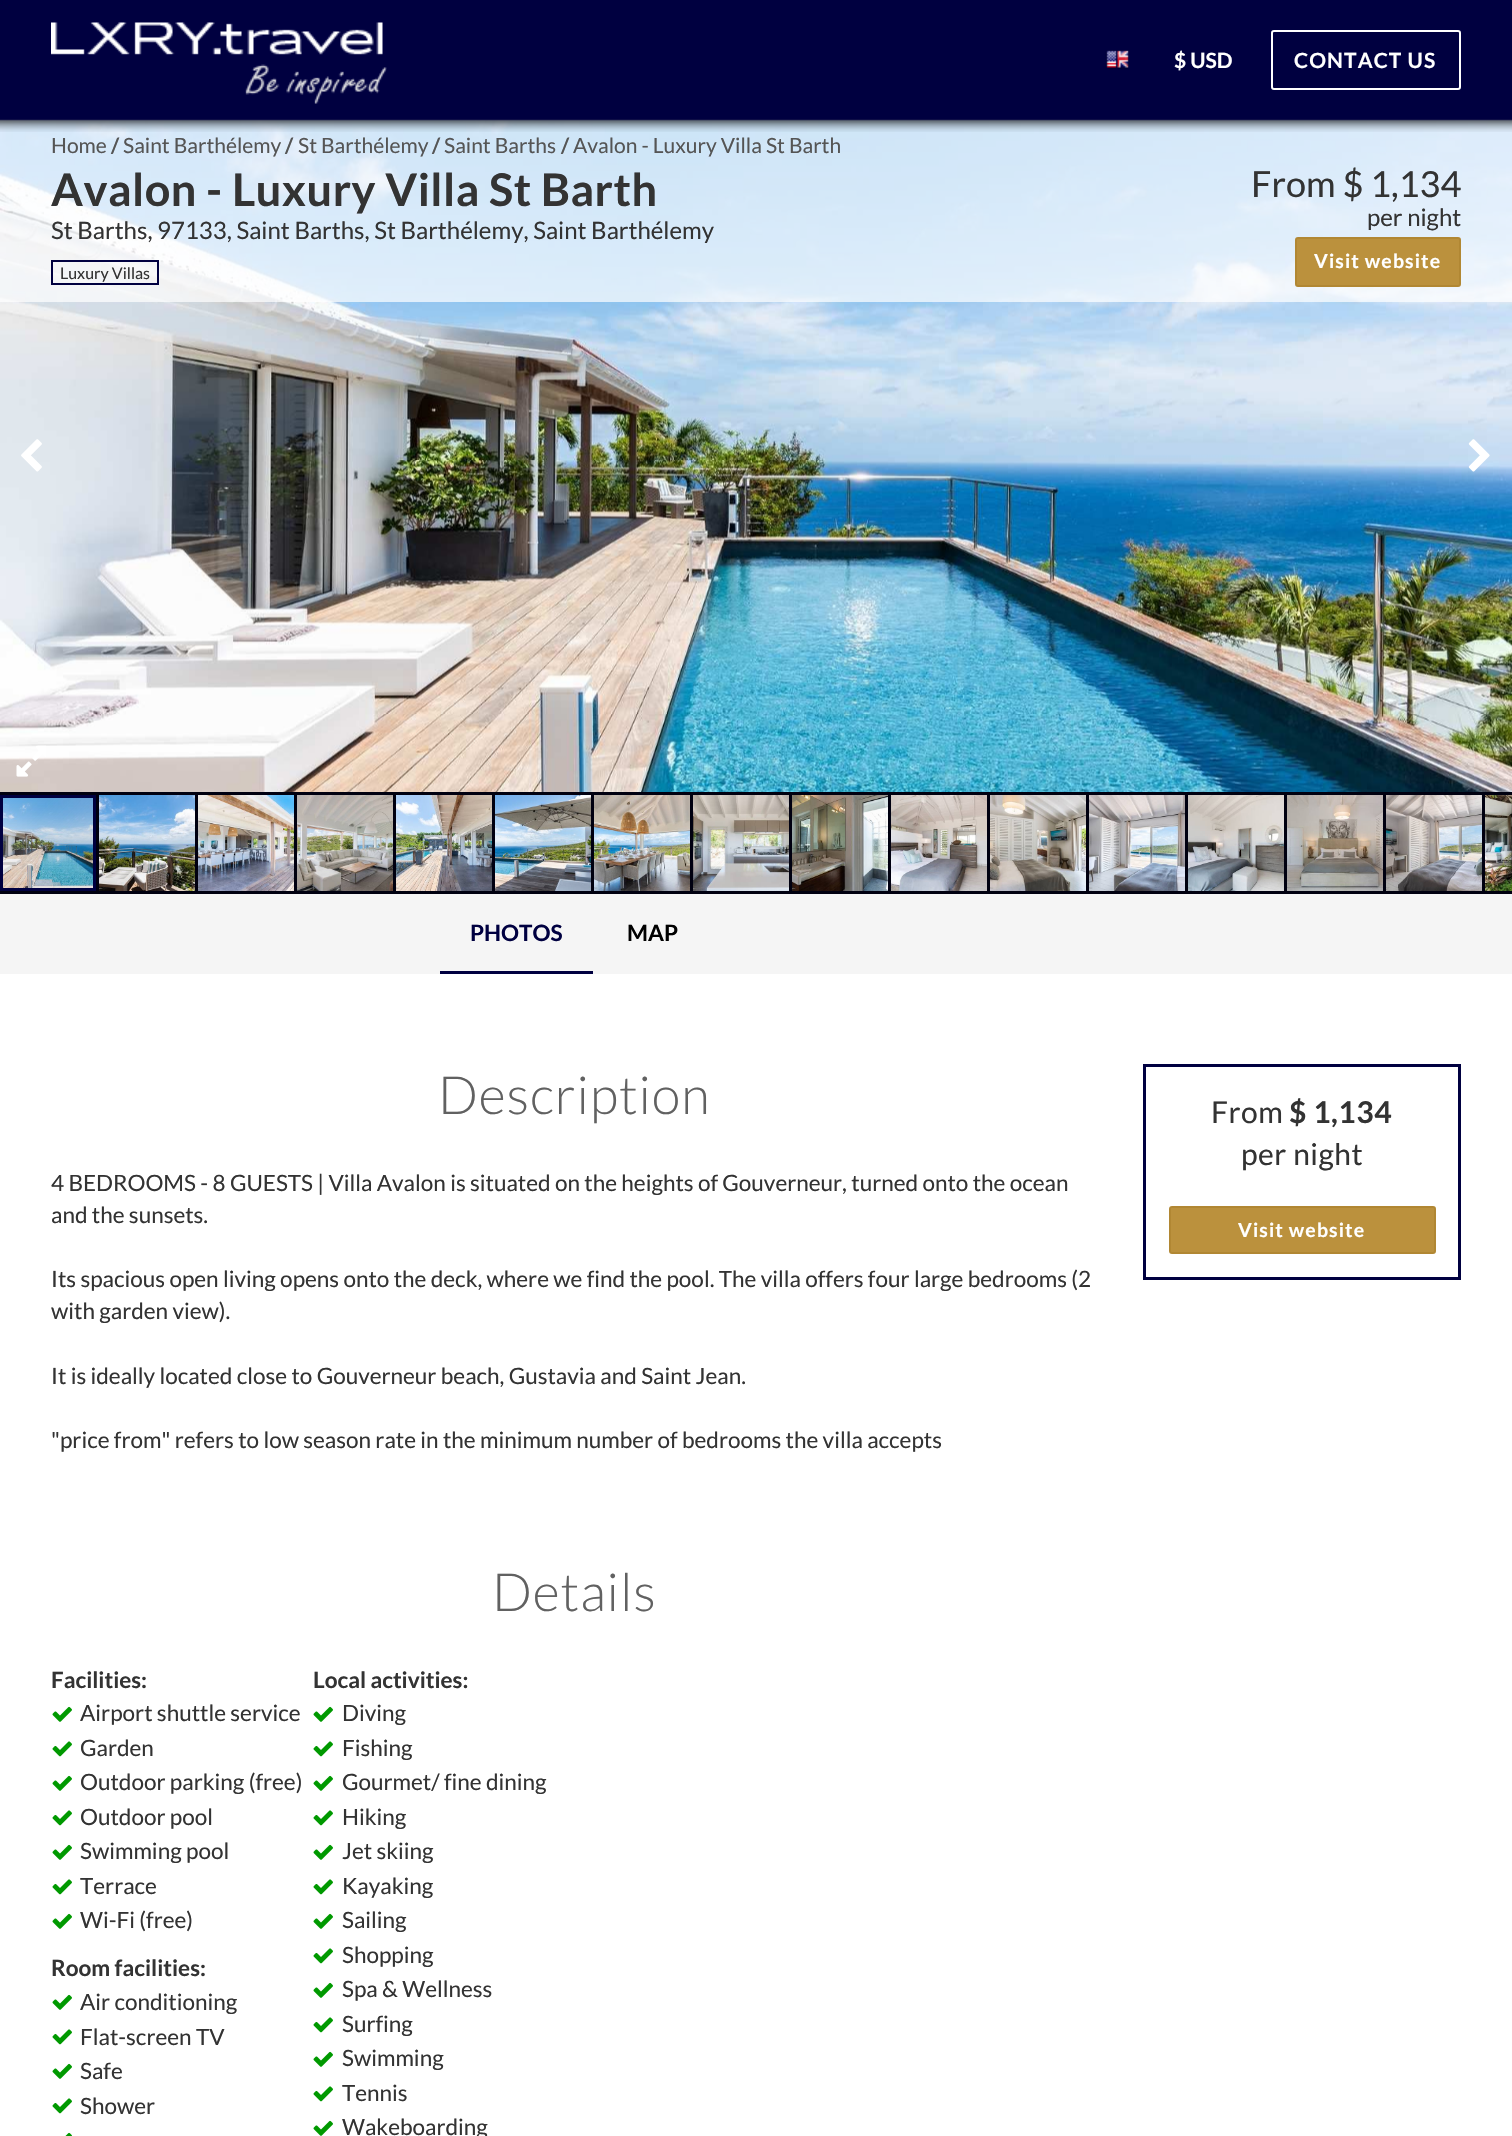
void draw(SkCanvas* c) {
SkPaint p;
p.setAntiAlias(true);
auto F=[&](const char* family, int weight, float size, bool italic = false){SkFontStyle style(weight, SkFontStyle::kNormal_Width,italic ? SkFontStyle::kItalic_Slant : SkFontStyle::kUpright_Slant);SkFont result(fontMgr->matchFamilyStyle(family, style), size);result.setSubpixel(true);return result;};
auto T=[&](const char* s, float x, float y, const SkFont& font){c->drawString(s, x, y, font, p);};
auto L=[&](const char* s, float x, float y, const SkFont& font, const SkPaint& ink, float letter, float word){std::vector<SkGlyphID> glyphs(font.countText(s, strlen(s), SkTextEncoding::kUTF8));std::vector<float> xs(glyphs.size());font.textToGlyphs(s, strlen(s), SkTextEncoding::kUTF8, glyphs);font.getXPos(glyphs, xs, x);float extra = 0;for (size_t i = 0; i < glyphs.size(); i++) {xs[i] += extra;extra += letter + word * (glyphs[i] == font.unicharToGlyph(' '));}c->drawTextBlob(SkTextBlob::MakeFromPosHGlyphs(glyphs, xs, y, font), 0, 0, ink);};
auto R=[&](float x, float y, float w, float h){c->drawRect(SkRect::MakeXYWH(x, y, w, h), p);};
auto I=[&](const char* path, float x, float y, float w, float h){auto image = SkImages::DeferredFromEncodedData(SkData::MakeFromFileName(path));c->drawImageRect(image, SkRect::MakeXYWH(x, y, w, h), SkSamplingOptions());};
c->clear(0xffffffff);
I("4.png",0,120,1512,672);
p.setColor(0xb3ffffff);
R(0,120,1512,182);
I("1.png",0,0,1512,132);
I("2.png",51,22,336,82);
I("3.png",1105,50,24,20);
auto f1 = F("Lato",700,21);
p.setColor(0xffffffff);
T("$ USD",1174,68,f1);
p.setStroke(true);
p.setStrokeWidth(2);
c->drawRoundRect(SkRect::MakeXYWH(1272,31,188,58),2,2,p);
p.setStroke(false);
L("CONTACT US",1294,68,f1,p,1.1,0);
auto f2 = F("Lato",400,21);
p.setColor(0xff555555);
T("Home",51,153,f2);
T("/",111,153,f1);
T("Saint Barthélemy",123,153,f2);
T("/",285,153,f1);
T("St Barthélemy",298,153,f2);
T("/",432,153,f1);
T("Saint Barths",444,153,f2);
T("/",561,153,f1);
T("Avalon - Luxury Villa St Barth",573,153,f2);
auto f3 = F("Lato",700,45);
p.setColor(0xff333333);
L("Avalon - Luxury Villa St Barth",51,206,f3,p,.5,0);
auto f4 = F("Lato",400,24);
T("St Barths, 97133, Saint Barths, St Barthélemy, Saint Barthélemy",51,239,f4);
p.setStroke(true);
p.setColor(0xff000040);
c->drawRect(SkRect::MakeXYWH(52,261,106,23),p);
auto f5 = F("Lato",400,16);
p.setStroke(false);
p.setColor(0xff333333);
T("Luxury Villas",60,279,f5);
auto f6 = F("Lato",400,36);
T("From $ 1,134",1251,197,f6);
T("per night",1367,226,f4);
p.setColor(0xffbb913d);
c->drawRoundRect(SkRect::MakeXYWH(1296,238,164,48),2,2,p);
p.setStroke(true);
p.setColor(0xffb18733);
c->drawRoundRect(SkRect::MakeXYWH(1296,238,164,48),2,2,p);
auto f7 = F("Lato",700,19.5);
p.setStroke(false);
p.setColor(0xffffffff);
L("Visit website",1314,268,f7,p,1.1,0);
p.setColor(0xff000010);
R(0,792,1512,102);
I("5.png",21,439,21,33);
I("6.png",1468,439,22,33);
I("7.png",16,745,30,32);
I("22.png",1485,795,27,96);
{
const SkColor colors[] = {0x66000000,0x00000000};
const float stops[] = {0,1};
SkMatrix m = SkMatrix::Translate(1512,843).preScale(7.5,51);
p.setShader(SkGradientShader::MakeRadial({0, 0}, 1, colors, stops, 2, SkTileMode::kClamp, 0, &m));
p.setAlpha(255);
}
R(1505,792,7,102);
{
const SkColor colors[] = {0x00000000,0x33000000,0x4d000000,0x00000000};
const float stops[] = {0,.25,.75,1};
const SkPoint ends[] = {{1511,792}, {1511,894}};
p.setShader(SkGradientShader::MakeLinear(ends, colors, stops, 4, SkTileMode::kClamp));
p.setAlpha(255);
}
R(1511,792,1,102);
I("23.png",3,798,90,90);
p.setStroke(true);
p.setStrokeWidth(3);
p.setShader(nullptr);
p.setColor(0xff000040);
c->drawRect(SkRect::MakeXYWH(1.5,796.5,93,93),p);
I("8.png",99,795,96,96);
I("9.png",198,795,96,96);
I("10.png",297,795,96,96);
I("11.png",396,795,96,96);
I("12.png",495,795,96,96);
I("13.png",594,795,96,96);
I("14.png",693,795,96,96);
I("15.png",792,795,96,96);
I("16.png",891,795,96,96);
I("17.png",990,795,96,96);
I("18.png",1089,795,96,96);
I("19.png",1188,795,96,96);
I("20.png",1287,795,96,96);
I("21.png",1386,795,96,96);
p.setStroke(false);
p.setColor(0xfff5f5f5);
R(0,894,1512,80);
p.setColor(0xff000040);
R(440,971,153,3);
auto f8 = F("Lato",700,22.5);
T("PHOTOS",470,941,f8);
p.setColor(0xff000000);
T("MAP",627,941,f8);
auto f9 = F("Lato",300,52.5);
p.setColor(0xff616161);
L("Description",438,1114,f9,p,.9,0);
auto f10 = F("Lato",400,22.5);
p.setColor(0xff333333);
T("4 BEDROOMS - 8 GUESTS | Villa Avalon is situated on the heights of Gouverneur, turned onto the ocean",51,1191,f10);
T("and the sunsets.",51,1223,f10);
T("Its spacious open living opens onto the deck, where we find the pool. The villa offers four large bedrooms (2",51,1287,f10);
T("with garden view).",51,1319,f10);
T("It is ideally located close to Gouverneur beach, Gustavia and Saint Jean.",51,1384,f10);
T("\"price from\" refers to low season rate in the minimum number of bedrooms the villa accepts",51,1448,f10);
p.setColor(0xff616161);
L("Details",492,1611,f9,p,.9,0);
p.setColor(0xff333333);
T("Facilities:",51,1688,f8);
I("24.png",52,1706,20,16);
T("Airport shuttle service",80,1721,f10);
I("25.png",52,1741,20,16);
T("Garden",80,1756,f10);
I("24.png",52,1775,20,16);
T("Outdoor parking (free)",80,1790,f10);
I("25.png",52,1810,20,16);
T("Outdoor pool",80,1825,f10);
I("24.png",52,1844,20,16);
T("Swimming pool",80,1859,f10);
I("25.png",52,1879,20,16);
T("Terrace",80,1894,f10);
I("24.png",52,1913,20,16);
T("Wi-Fi (free)",80,1928,f10);
T("Local activities:",313,1688,f8);
I("24.png",313,1706,20,16);
T("Diving",342,1721,f10);
I("25.png",313,1741,20,16);
T("Fishing",342,1756,f10);
I("24.png",313,1775,20,16);
T("Gourmet/ fine dining",342,1790,f10);
I("25.png",313,1810,20,16);
T("Hiking",342,1825,f10);
I("24.png",313,1844,20,16);
T("Jet skiing",342,1859,f10);
I("25.png",313,1879,20,16);
T("Kayaking",342,1894,f10);
I("24.png",313,1913,20,16);
T("Sailing",342,1928,f10);
I("25.png",313,1948,20,16);
T("Shopping",342,1963,f10);
I("24.png",313,1982,20,16);
T("Spa & Wellness",342,1997,f10);
I("25.png",313,2017,20,16);
T("Surfing",342,2032,f10);
I("24.png",313,2051,20,16);
T("Swimming",342,2066,f10);
I("25.png",313,2086,20,16);
T("Tennis",342,2101,f10);
I("24.png",313,2120,20,16);
T("Wakeboarding",342,2135,f10);
T("Room facilities:",51,1976,f8);
I("24.png",52,1994,20,16);
T("Air conditioning",80,2010,f10);
I("25.png",52,2029,20,16);
T("Flat-screen TV",80,2045,f10);
I("24.png",52,2063,20,16);
T("Safe",80,2079,f10);
I("25.png",52,2098,20,16);
T("Shower",80,2114,f10);
I("26.png",65,2132,7,4);
p.setStroke(true);
p.setColor(0xff000040);
c->drawRect(SkRect::MakeXYWH(1144.5,1065.5,315,213),p);
auto f11 = F("Lato",400,30);
p.setStroke(false);
p.setColor(0xff333333);
L("From",1211,1123,f11,p,.5,0);
auto f12 = F("Lato",700,30);
L("$ 1,134",1289,1123,f12,p,.5,0);
L("per night",1241,1165,f11,p,.5,0);
p.setColor(0xffbb913d);
c->drawRoundRect(SkRect::MakeXYWH(1170,1207,265,46),2,2,p);
p.setStroke(true);
p.setStrokeWidth(2);
p.setColor(0xffb18733);
c->drawRoundRect(SkRect::MakeXYWH(1170,1207,265,46),2,2,p);
p.setStroke(false);
p.setColor(0xffffffff);
L("Visit website",1238,1237,f7,p,1.1,0);
}
